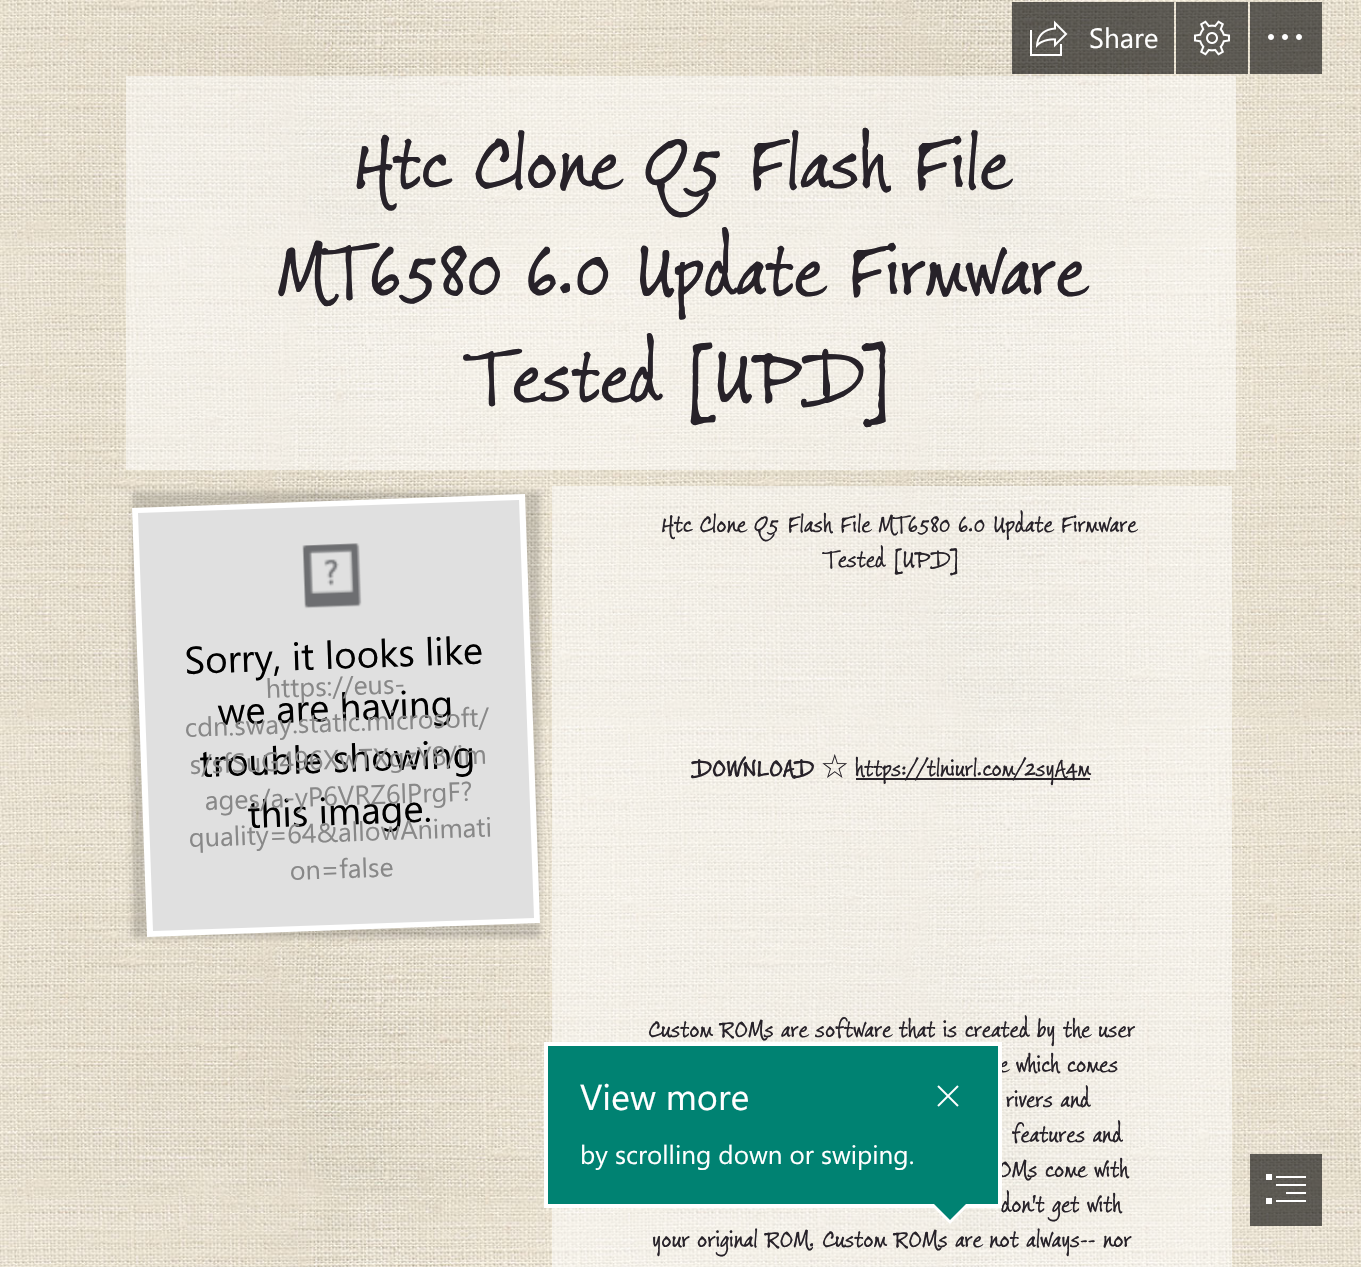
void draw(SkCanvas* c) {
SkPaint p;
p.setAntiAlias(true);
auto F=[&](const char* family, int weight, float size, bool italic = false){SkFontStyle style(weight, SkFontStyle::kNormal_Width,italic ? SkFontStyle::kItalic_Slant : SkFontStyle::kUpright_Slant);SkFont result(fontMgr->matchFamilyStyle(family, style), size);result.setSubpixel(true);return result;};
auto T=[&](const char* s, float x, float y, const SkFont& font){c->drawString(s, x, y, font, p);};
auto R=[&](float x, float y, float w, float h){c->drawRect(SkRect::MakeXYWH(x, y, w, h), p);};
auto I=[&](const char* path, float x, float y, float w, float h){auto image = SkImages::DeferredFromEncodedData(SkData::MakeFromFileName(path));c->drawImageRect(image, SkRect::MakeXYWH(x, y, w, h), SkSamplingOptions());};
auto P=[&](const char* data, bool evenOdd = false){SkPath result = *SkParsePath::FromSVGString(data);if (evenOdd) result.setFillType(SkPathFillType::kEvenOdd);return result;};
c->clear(0xffffffff);
I("4.png",0,0,1361,1267);
p.setColor(0x99000000);
R(1012,2,162,72);
I("1.png",1030,20,38,36);
auto f1 = F("Segoe UI",400,28);
p.setColor(0xffffffff);
T("Share",1089,48,f1);
p.setColor(0x99000000);
R(1176,2,72,72);
I("2.png",1194,20,36,36);
R(1250,2,72,72);
I("3.png",1268,34,34,6);
p.setColor(0x80ffffff);
R(126,76,1110,394);
auto f2 = F("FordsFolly",400,79.75);
p.setColor(0xff272229);
T("Htc Clone Q5 Flash File",353,188,f2);
T("MT6580 6.0 Update Firmware",276,295,f2);
T("Tested [UPD]",469,401,f2);
p.setColor(0x26000000);
p.setMaskFilter(SkMaskFilter::MakeBlur(kNormal_SkBlurStyle, 2.5));
c->drawRect(SkRect::MakeXYWH(132,492,408,446),p);
p.setMaskFilter(nullptr);
p.setColor(0xffffffff);
c->drawPath(P("M132 508l393-14l15 429l-393 14z"),p);
p.setColor(0xffe0e0e0);
c->drawPath(P("M138 513l381-13l15 418l-381 13l-3-86z"),p);
I("5.png",302,543,60,66);
auto f3 = F("Segoe UI",400,38.5);
p.setColor(0xff000000);
c->save();
c->rotate(-2,185,674);
T("Sorry, it looks like",185,674,f3);
c->restore();
c->save();
c->rotate(-2,218,725);
T("we are having",218,725,f3);
c->restore();
auto f4 = F("Segoe UI",400,27);
p.setColor(0xff888888);
c->save();
c->rotate(-2,266,698);
T("https://eus-",266,698,f4);
c->restore();
c->save();
c->rotate(-2,185,737);
T("cdn.sway.static.microsoft/",185,737,f4);
c->restore();
p.setColor(0xff000000);
c->save();
c->rotate(-2,200,777);
T("trouble showing",200,777,f3);
c->restore();
p.setColor(0xff888888);
c->save();
c->rotate(-2,190,774);
T("s/sfSuG496XwTXgzY8/im",190,774,f4);
c->restore();
p.setColor(0xff000000);
c->save();
c->rotate(-2,248,828);
T("this image.",248,828,f3);
c->restore();
p.setColor(0xff888888);
c->save();
c->rotate(-2,205,810);
T("ages/a-yP6VRZ6lPrgF?",205,810,f4);
c->restore();
c->save();
c->rotate(-2,189,847);
T("quality=64&allowAnimati",189,847,f4);
c->restore();
c->save();
c->rotate(-2,290,880);
T("on=false",290,880,f4);
c->restore();
p.setColor(0x80ffffff);
R(552,486,680,781);
auto f5 = F("FordsFolly",400,25.5);
p.setColor(0xff272229);
T("Htc Clone Q5 Flash File MT6580 6.0 Update Firmware",661,532,f5);
T("Tested [UPD]",824,567,f5);
auto f6 = F("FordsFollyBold",700,25.5);
T("DOWNLOAD",692,776,f6);
auto f7 = F("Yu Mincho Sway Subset",400,25.5);
T("☆",822,776,f7);
R(856,778,234,2);
T("https://tlniurl.com/2syA4m",855,776,f5);
T("Custom ROMs are software that is created by the user",648,1037,f5);
T("e which comes",999,1072,f5);
T("rivers and",1006,1107,f5);
T("features and",1012,1142,f5);
T("OMs come with",998,1177,f5);
T("don't get with",1001,1212,f5);
T("your original ROM. Custom ROMs are not always-- nor",652,1247,f5);
p.setColor(0xff008272);
c->drawRect(SkRect::MakeXYWH(546,1044,454,162),p);
p.setStroke(true);
p.setStrokeWidth(4);
p.setColor(0xffffffff);
c->drawRect(SkRect::MakeXYWH(546,1044,454,162),p);
auto f8 = F("Segoe UI",400,36);
p.setStroke(false);
T("View more",580,1110,f8);
auto f9 = F("Segoe UI",400,26);
T("by scrolling down or swiping.",580,1164,f9);
I("6.png",937,1085,22,22);
c->drawPath(P("M930 1204h40l-20 20z"),p);
p.setColor(0xff008272);
c->drawPath(P("M934 1204h32l-16 16z"),p);
p.setColor(0x99000000);
R(1250,1154,72,72);
I("7.png",1266,1174,40,30);
}
